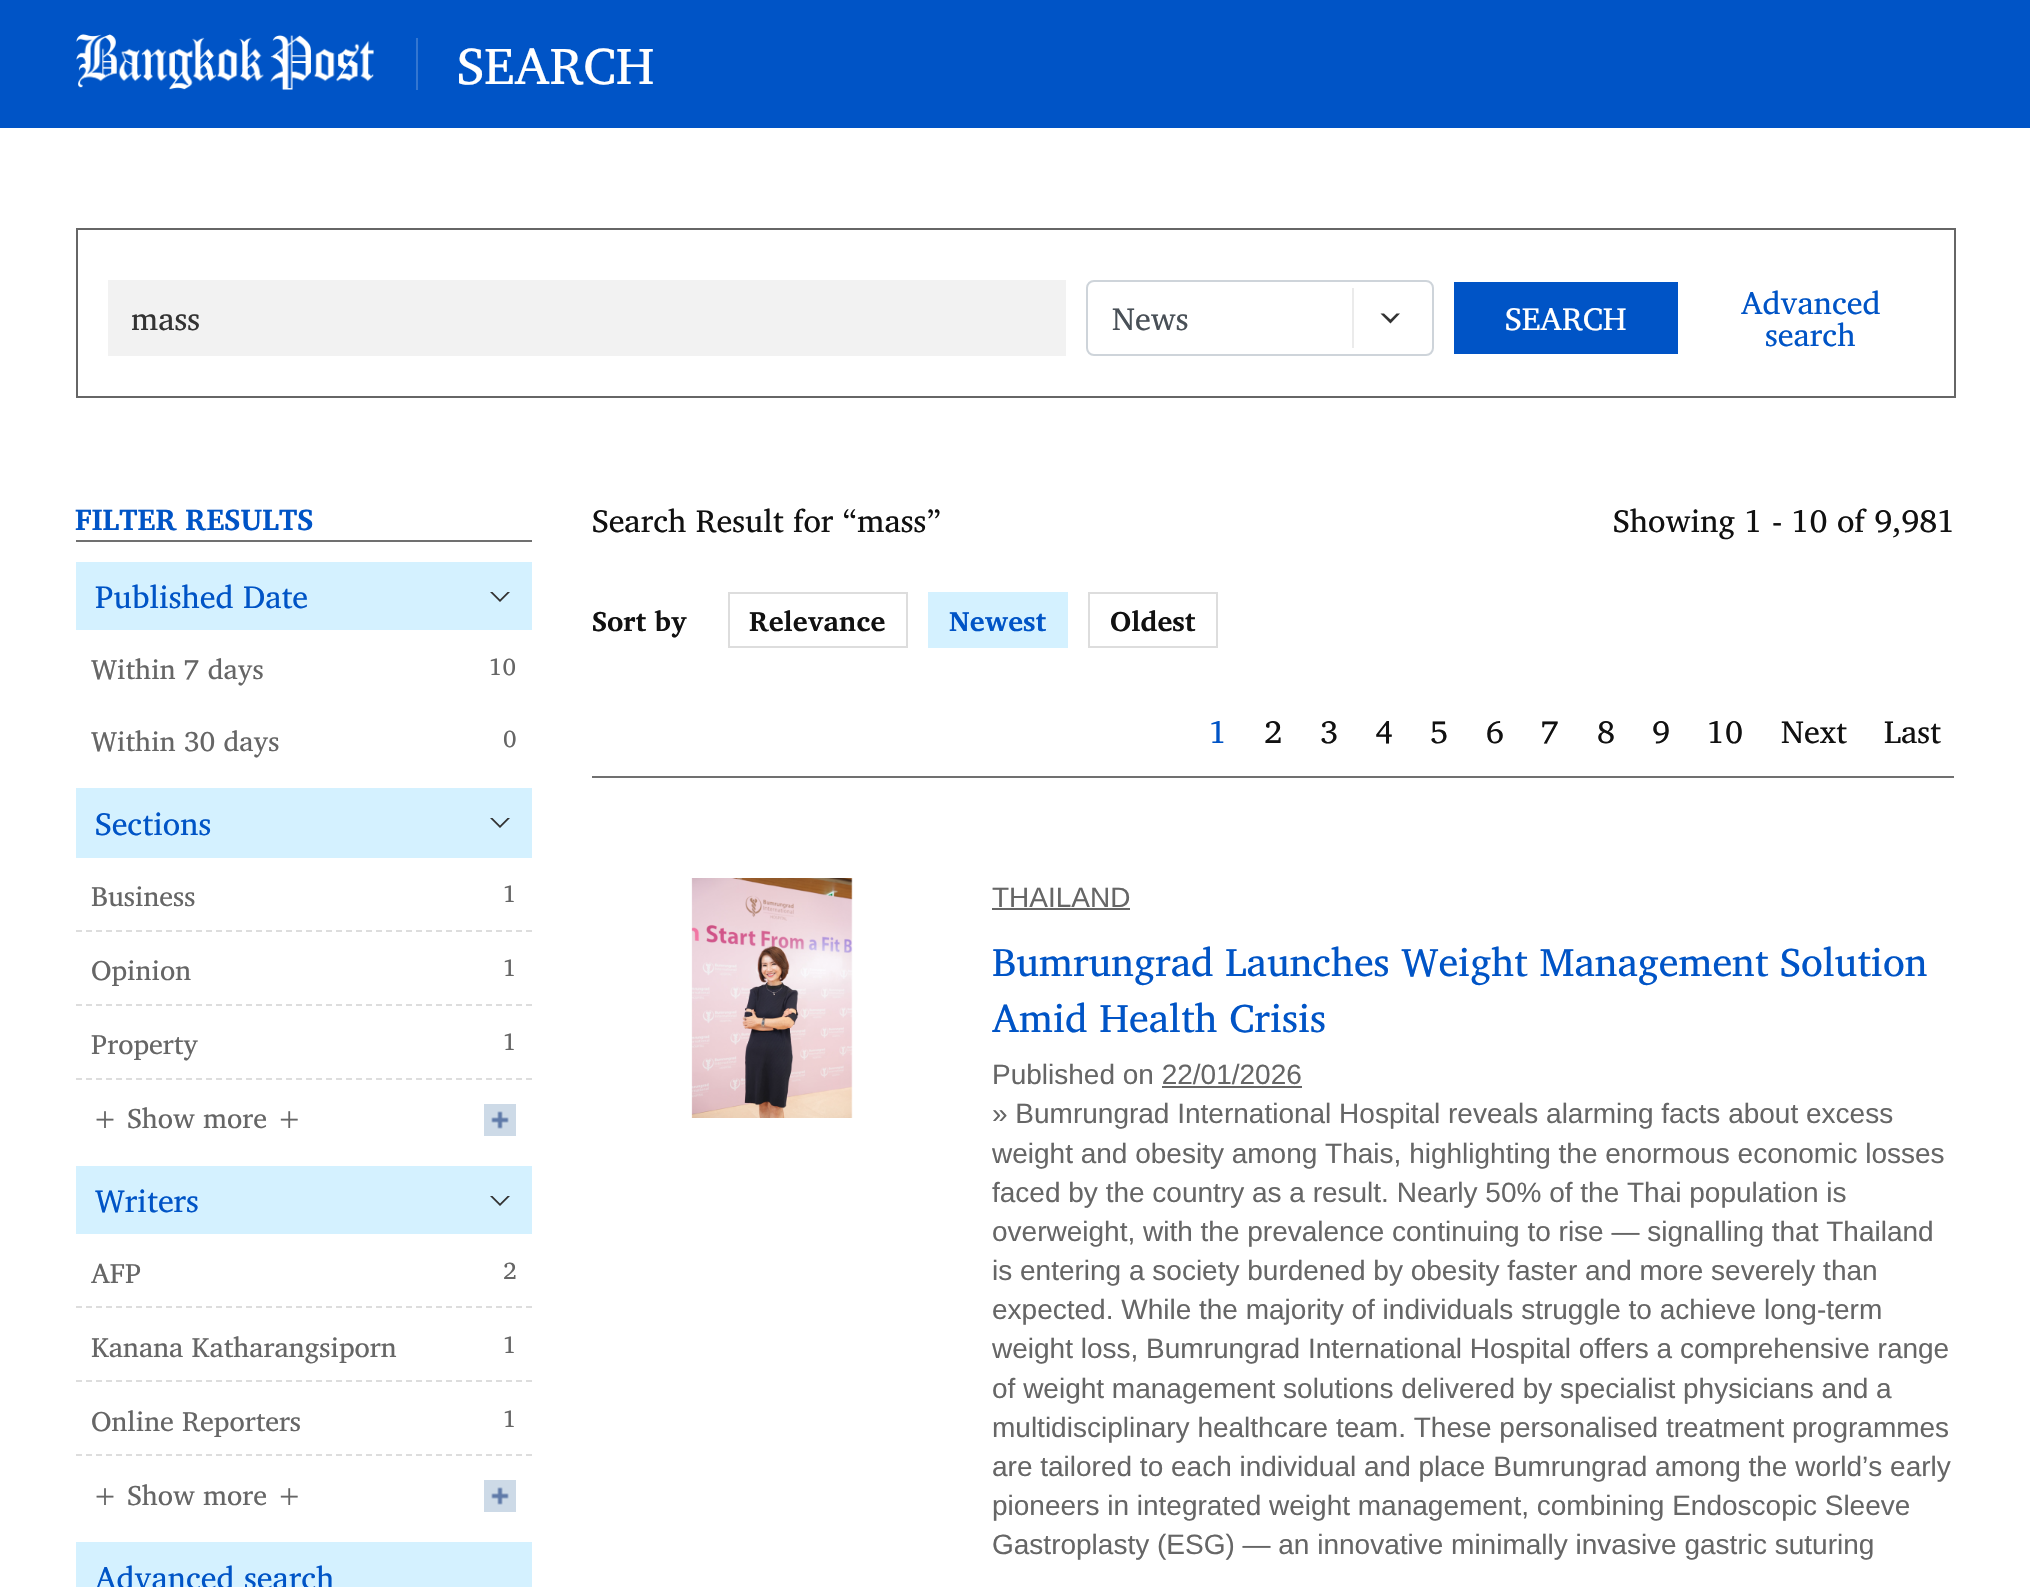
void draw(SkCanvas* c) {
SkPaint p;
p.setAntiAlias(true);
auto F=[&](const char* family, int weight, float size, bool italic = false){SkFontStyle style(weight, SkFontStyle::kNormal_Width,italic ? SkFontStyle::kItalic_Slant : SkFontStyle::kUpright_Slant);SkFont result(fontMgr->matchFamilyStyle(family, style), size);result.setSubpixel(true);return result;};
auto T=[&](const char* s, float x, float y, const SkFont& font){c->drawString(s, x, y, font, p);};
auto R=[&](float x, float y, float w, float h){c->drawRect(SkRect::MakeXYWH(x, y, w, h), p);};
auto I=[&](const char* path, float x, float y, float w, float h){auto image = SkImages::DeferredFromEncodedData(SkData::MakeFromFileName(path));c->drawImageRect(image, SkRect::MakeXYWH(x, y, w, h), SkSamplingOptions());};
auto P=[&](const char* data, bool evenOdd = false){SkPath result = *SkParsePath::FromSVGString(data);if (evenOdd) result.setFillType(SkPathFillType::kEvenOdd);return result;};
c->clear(0xffffffff);
p.setColor(0xff0054c6);
R(0,0,2030,128);
I("1.png",76,34,298,56);
p.setColor(0xff3376d1);
R(416,38,2,52);
auto f1 = F("Charis SIL",400,52);
p.setColor(0xffffffff);
T("SEARCH",457,84,f1);
p.setStroke(true);
p.setStrokeWidth(2);
p.setColor(0xff666666);
c->drawRect(SkRect::MakeXYWH(77,229,1878,168),p);
p.setStroke(false);
p.setColor(0xfff2f2f2);
R(108,280,958,76);
c->save();
c->clipRect(SkRect::MakeXYWH(132,292,910,52));
auto f2 = F("Charis SIL",400,32);
p.setColor(0xff333333);
T("mass",131,330,f2);
c->restore();
c->drawPath(P("M1390.5 319.5l-6.5-6h-3.5l10 10l9.5-10h-3.5z"),p);
p.setColor(0xffebebeb);
R(1352,288,2,60);
p.setStroke(true);
p.setColor(0xffced4da);
c->drawRoundRect(SkRect::MakeXYWH(1087,281,346,74),7,7,p);
p.setStroke(false);
p.setColor(0xff495057);
T("News",1112,330,f2);
p.setColor(0xff0054c6);
R(1454,282,224,72);
p.setColor(0xffffffff);
T("SEARCH",1505,330,f2);
p.setColor(0xff0054c6);
T("Advanced",1741,314,f2);
T("search",1765,346,f2);
p.setColor(0xff707070);
R(76,540,456,2);
auto f3 = F("Charis SIL",700,30);
p.setColor(0xff0054c6);
T("FILTER RESULTS",75,530,f3);
p.setColor(0xffd4f1ff);
R(76,562,456,68);
p.setColor(0xff333333);
c->drawPath(P("M492.5 592h-2.5l10 10l10-10h-2.5l-7.5 7.5z"),p);
p.setColor(0xff0054c6);
T("Published Date",95,608,f2);
auto f4 = F("Charis SIL",400,28);
p.setColor(0xff666666);
T("Within 7 days",91,679,f4);
auto f5 = F("Charis SIL",400,24);
T("10",489,675,f5);
T("Within 30 days",91,751,f4);
T("0",503,747,f5);
p.setColor(0xffd4f1ff);
R(76,788,456,70);
p.setColor(0xff333333);
c->drawPath(P("M492.5 818h-2.5l10 10l10-10h-2.5l-7.5 7.5z"),p);
p.setColor(0xff0054c6);
T("Sections",95,835,f2);
p.setStroke(true);
p.setColor(0xffdddddd);
p.setPathEffect(SkDashPathEffect::Make({{6,4}}, 0));
c->drawPath(P("M76 931h456"),p);
p.setPathEffect(nullptr);
p.setStroke(false);
p.setColor(0xff666666);
T("Business",91,906,f4);
T("1",503,902,f5);
p.setStroke(true);
p.setColor(0xffdddddd);
p.setPathEffect(SkDashPathEffect::Make({{6,4}}, 0));
c->drawPath(P("M76 1005h456"),p);
p.setPathEffect(nullptr);
p.setStroke(false);
p.setColor(0xff666666);
T("Opinion",91,980,f4);
T("1",503,976,f5);
p.setStroke(true);
p.setColor(0xffdddddd);
p.setPathEffect(SkDashPathEffect::Make({{6,4}}, 0));
c->drawPath(P("M76 1079h456"),p);
p.setPathEffect(nullptr);
p.setStroke(false);
p.setColor(0xff666666);
T("Property",91,1054,f4);
T("1",503,1050,f5);
T("+ Show more +",91,1128,f4);
I("2.png",484,1104,32,32);
p.setColor(0xffd4f1ff);
R(76,1166,456,68);
p.setColor(0xff333333);
c->drawPath(P("M492.5 1196h-2.5l10 10l10-10h-2.5l-7.5 7.5z"),p);
p.setColor(0xff0054c6);
T("Writers",95,1212,f2);
p.setStroke(true);
p.setColor(0xffdddddd);
p.setPathEffect(SkDashPathEffect::Make({{6,4}}, 0));
c->drawPath(P("M76 1307h456"),p);
p.setPathEffect(nullptr);
p.setStroke(false);
p.setColor(0xff666666);
T("AFP",91,1283,f4);
T("2",503,1279,f5);
p.setStroke(true);
p.setColor(0xffdddddd);
p.setPathEffect(SkDashPathEffect::Make({{6,4}}, 0));
c->drawPath(P("M76 1381h456"),p);
p.setPathEffect(nullptr);
p.setStroke(false);
p.setColor(0xff666666);
T("Kanana Katharangsiporn",91,1357,f4);
T("1",503,1353,f5);
p.setStroke(true);
p.setColor(0xffdddddd);
p.setPathEffect(SkDashPathEffect::Make({{6,4}}, 0));
c->drawPath(P("M76 1455h456"),p);
p.setPathEffect(nullptr);
p.setStroke(false);
p.setColor(0xff666666);
T("Online Reporters",91,1431,f4);
T("1",503,1427,f5);
T("+ Show more +",91,1505,f4);
I("2.png",484,1480,32,32);
p.setColor(0xffd4f1ff);
R(76,1542,456,45);
p.setColor(0xff0054c6);
T("Advanced search",95,1589,f2);
p.setColor(0xff111111);
T("Search Result for “mass”",592,532,f2);
T("Showing 1 - 10 of 9,981",1613,532,f2);
auto f6 = F("Charis SIL",700,28);
T("Sort by",592,631,f6);
p.setStroke(true);
p.setColor(0xffdddddd);
c->drawRect(SkRect::MakeXYWH(729,593,178,54),p);
p.setStroke(false);
p.setColor(0xff111111);
T("Relevance",749,631,f6);
p.setColor(0xffd4f1ff);
R(928,592,140,56);
p.setColor(0xff0054c6);
T("Newest",949,631,f6);
p.setStroke(true);
p.setColor(0xffdddddd);
c->drawRect(SkRect::MakeXYWH(1089,593,128,54),p);
p.setStroke(false);
p.setColor(0xff111111);
T("Oldest",1110,631,f6);
p.setColor(0xff707070);
R(592,776,1362,2);
p.setColor(0xff0054c6);
T("1",1209,743,f2);
p.setColor(0xff111111);
T("2",1264,743,f2);
T("3",1320,743,f2);
T("4",1375,743,f2);
T("5",1430,743,f2);
T("6",1486,743,f2);
T("7",1541,743,f2);
T("8",1597,743,f2);
T("9",1652,743,f2);
T("10",1707,743,f2);
T("Next",1781,743,f2);
T("Last",1884,743,f2);
I("3.png",691,878,162,240);
auto f7 = F("Liberation Sans",400,28);
p.setColor(0xff666666);
T("THAILAND",992,907,f7);
R(992,908,138,2);
auto f8 = F("Charis SIL",400,40);
p.setColor(0xff0054c6);
T("Bumrungrad Launches Weight Management Solution",992,976,f8);
T("Amid Health Crisis",992,1032,f8);
p.setColor(0xff666666);
T("Published on 22/01/2026",992,1084,f7);
R(1162,1086,140,2);
T("» Bumrungrad International Hospital reveals alarming facts about excess",992,1123,f7);
T("weight and obesity among Thais, highlighting the enormous economic losses",992,1163,f7);
T("faced by the country as a result. Nearly 50% of the Thai population is",992,1202,f7);
T("overweight, with the prevalence continuing to rise — signalling that Thailand",992,1241,f7);
T("is entering a society burdened by obesity faster and more severely than",992,1280,f7);
T("expected. While the majority of individuals struggle to achieve long-term",992,1319,f7);
T("weight loss, Bumrungrad International Hospital offers a comprehensive range",992,1358,f7);
T("of weight management solutions delivered by specialist physicians and a",992,1398,f7);
T("multidisciplinary healthcare team. These personalised treatment programmes",992,1437,f7);
T("are tailored to each individual and place Bumrungrad among the world’s early",992,1476,f7);
T("pioneers in integrated weight management, combining Endoscopic Sleeve",992,1515,f7);
T("Gastroplasty (ESG) — an innovative minimally invasive gastric suturing",992,1554,f7);
}
